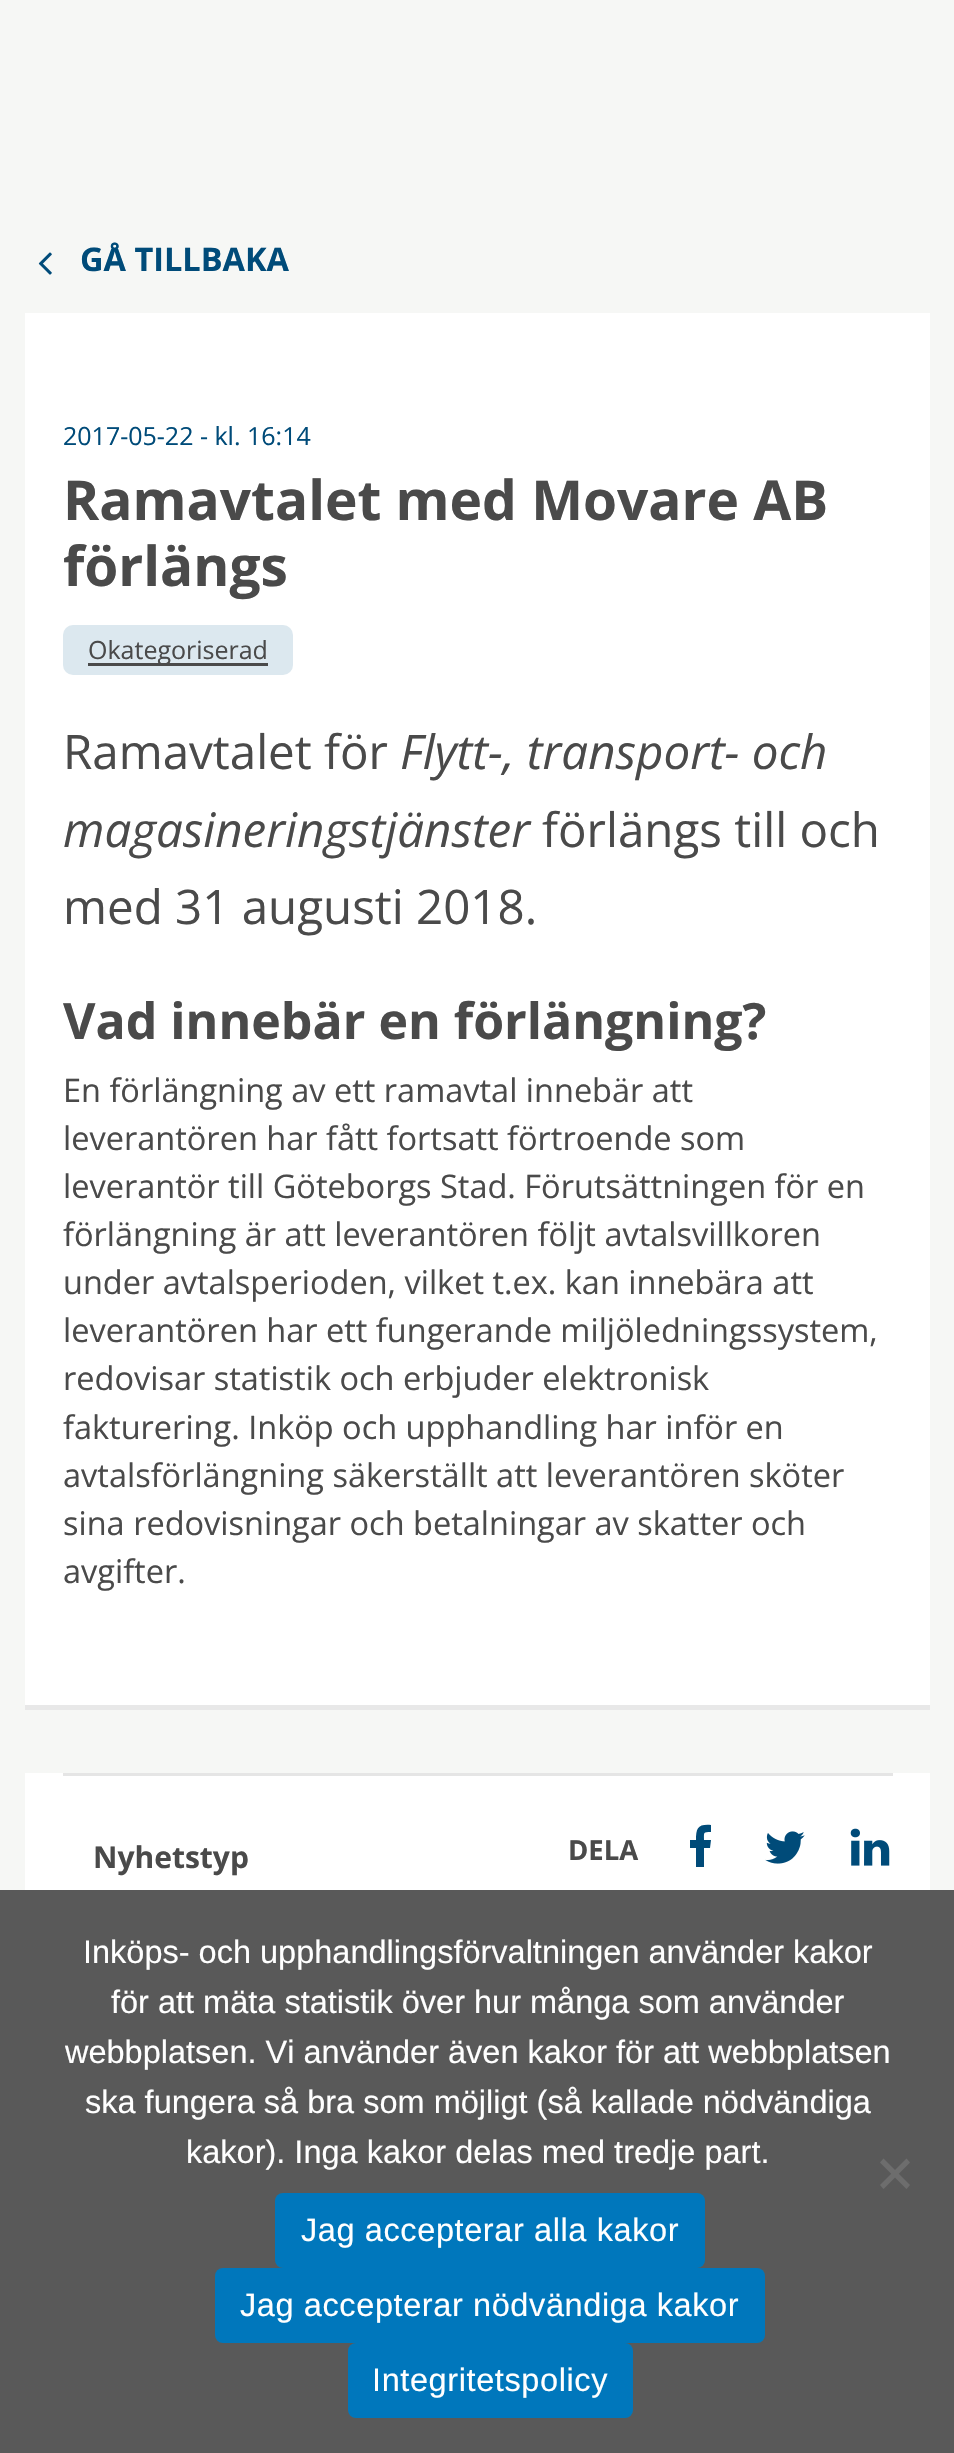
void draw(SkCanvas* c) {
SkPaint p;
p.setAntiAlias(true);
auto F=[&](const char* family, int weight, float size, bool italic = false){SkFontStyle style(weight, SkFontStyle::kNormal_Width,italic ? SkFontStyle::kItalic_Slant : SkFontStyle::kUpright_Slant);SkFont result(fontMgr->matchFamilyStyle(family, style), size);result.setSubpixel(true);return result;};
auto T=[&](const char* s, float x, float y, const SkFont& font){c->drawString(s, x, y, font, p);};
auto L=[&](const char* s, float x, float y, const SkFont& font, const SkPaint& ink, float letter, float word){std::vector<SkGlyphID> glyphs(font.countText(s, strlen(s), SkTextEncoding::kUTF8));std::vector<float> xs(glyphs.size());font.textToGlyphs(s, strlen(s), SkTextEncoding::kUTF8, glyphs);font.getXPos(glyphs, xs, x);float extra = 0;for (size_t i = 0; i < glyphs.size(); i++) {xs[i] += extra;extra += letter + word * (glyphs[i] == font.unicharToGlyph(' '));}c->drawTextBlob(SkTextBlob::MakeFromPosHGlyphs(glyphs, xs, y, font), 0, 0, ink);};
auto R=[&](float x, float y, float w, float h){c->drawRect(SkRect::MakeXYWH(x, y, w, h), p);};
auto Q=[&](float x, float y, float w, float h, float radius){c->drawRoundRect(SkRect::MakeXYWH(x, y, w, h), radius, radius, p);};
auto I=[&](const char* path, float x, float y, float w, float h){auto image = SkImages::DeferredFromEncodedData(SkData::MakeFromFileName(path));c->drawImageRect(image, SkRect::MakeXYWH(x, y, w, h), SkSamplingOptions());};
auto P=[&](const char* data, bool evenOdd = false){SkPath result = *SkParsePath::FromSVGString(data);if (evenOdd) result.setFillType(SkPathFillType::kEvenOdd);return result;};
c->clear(0xfff6f7f5);
I("1.png",38,252,14,23);
auto f1 = F("Open Sans",700,32.5);
p.setColor(0xff004b79);
T("GÅ TILLBAKA",80,271,f1);
p.setColor(0xffffffff);
R(25,313,905,1392);
p.setColor(0xffe8e8e8);
R(25,1705,905,5);
auto f2 = F("Open Sans",400,25);
p.setColor(0xff004b79);
T("2017-05-22 - kl. 16:14",63,445,f2);
auto f3 = F("Open Sans",700,55);
p.setColor(0xff4a4a4a);
T("Ramavtalet med Movare AB",63,520,f3);
T("förlängs",63,586,f3);
p.setColor(0xffdce8ef);
Q(63,625,230,50,10);
p.setColor(0xff4a4a4a);
R(88,663,180,3);
T("Okategoriserad",88,659,f2);
auto f4 = F("Open Sans",400,47.5);
T("Ramavtalet för",63,769,f4);
auto f5 = F("Open Sans",400,47.5,true);
T("Flytt-, transport- och",400,769,f5);
T("magasineringstjänster",63,847,f5);
T("förlängs till och",542,847,f4);
T("med 31 augusti 2018.",63,924,f4);
auto f6 = F("Open Sans",700,50);
T("Vad innebär en förlängning?",63,1039,f6);
auto f7 = F("Open Sans",400,32.5);
T("En förlängning av ett ramavtal innebär att",63,1102,f7);
T("leverantören har fått fortsatt förtroende som",63,1150,f7);
T("leverantör till Göteborgs Stad. Förutsättningen för en",63,1198,f7);
T("förlängning är att leverantören följt avtalsvillkoren",63,1246,f7);
T("under avtalsperioden, vilket t.ex. kan innebära att",63,1294,f7);
T("leverantören har ett fungerande miljöledningssystem,",63,1342,f7);
T("redovisar statistik och erbjuder elektronisk",63,1390,f7);
T("fakturering. Inköp och upphandling har inför en",63,1439,f7);
T("avtalsförlängning säkerställt att leverantören sköter",63,1487,f7);
T("sina redovisningar och betalningar av skatter och",63,1535,f7);
T("avgifter.",63,1583,f7);
p.setColor(0xffffffff);
R(25,1773,905,117);
p.setColor(0xffe5e5e5);
R(63,1773,830,3);
auto f8 = F("Open Sans",700,30);
p.setColor(0xff4a4a4a);
T("Nyhetstyp",93,1868,f8);
auto f9 = F("Open Sans",700,27.5);
T("DELA",568,1860,f9);
p.setColor(0xff004b79);
c->drawPath(P("M711 1825c-13-1-15 3-15 15h-6v8h6v19h8v-19h6l1-8h-7c0-8-1-8 7-8z"),p);
I("2.png",765,1831,40,33);
I("3.png",850,1828,40,38);
p.setColor(0xff595959);
R(0,1890,954,563);
auto f10 = F("Liberation Sans",400,32.5);
p.setColor(0xffffffff);
T("Inköps- och upphandlingsförvaltningen använder kakor",83,1963,f10);
T("för att mäta statistik över hur många som använder",111,2013,f10);
T("webbplatsen. Vi använder även kakor för att webbplatsen",65,2063,f10);
T("ska fungera så bra som möjligt (så kallade nödvändiga",85,2113,f10);
T("kakor). Inga kakor delas med tredje part.",186,2163,f10);
p.setColor(0xff6d6d6d);
c->drawPath(P("M906.5 2158.5l3.5 4l-26.5 26.5l-3.5-4z"),p);
c->drawPath(P("M880 2162.5l3.5-4l26.5 26.5l-3.5 4z"),p);
p.setColor(0xff0077bc);
Q(275,2193,430,75,8);
p.setColor(0xffffffff);
L("Jag accepterar alla kakor",301,2241,f10,p,.6,0);
p.setColor(0xff0077bc);
Q(215,2268,550,75,8);
p.setColor(0xffffffff);
L("Jag accepterar nödvändiga kakor",240,2316,f10,p,.6,0);
p.setColor(0xff0077bc);
Q(348,2343,285,75,8);
p.setColor(0xffffffff);
L("Integritetspolicy",372,2391,f10,p,.6,0);
}
